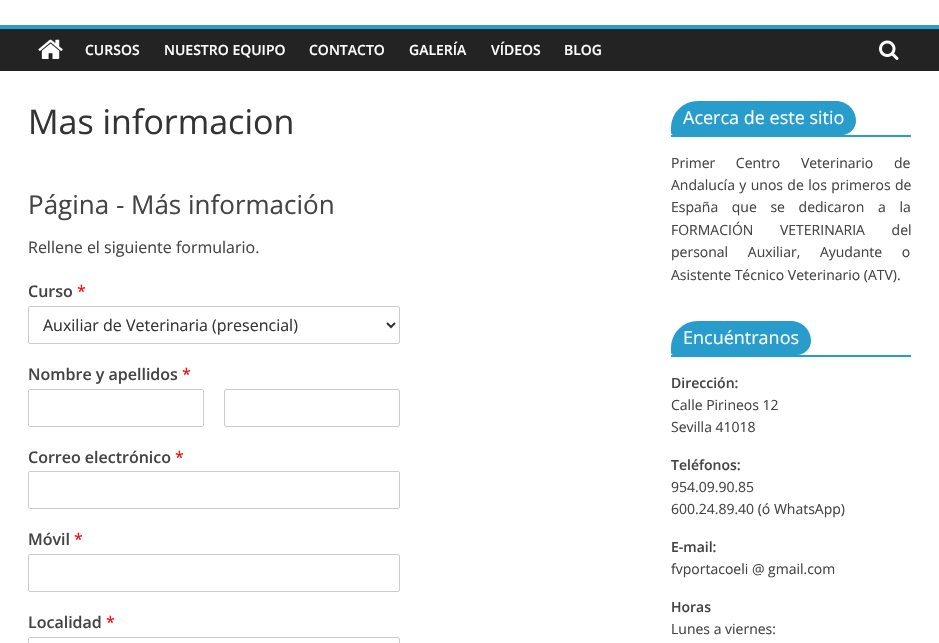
void draw(SkCanvas* c) {
SkPaint p;
p.setAntiAlias(true);
auto F=[&](const char* family, int weight, float size, bool italic = false){SkFontStyle style(weight, SkFontStyle::kNormal_Width,italic ? SkFontStyle::kItalic_Slant : SkFontStyle::kUpright_Slant);SkFont result(fontMgr->matchFamilyStyle(family, style), size);result.setSubpixel(true);return result;};
auto T=[&](const char* s, float x, float y, const SkFont& font){c->drawString(s, x, y, font, p);};
auto L=[&](const char* s, float x, float y, const SkFont& font, const SkPaint& ink, float letter, float word){std::vector<SkGlyphID> glyphs(font.countText(s, strlen(s), SkTextEncoding::kUTF8));std::vector<float> xs(glyphs.size());font.textToGlyphs(s, strlen(s), SkTextEncoding::kUTF8, glyphs);font.getXPos(glyphs, xs, x);float extra = 0;for (size_t i = 0; i < glyphs.size(); i++) {xs[i] += extra;extra += letter + word * (glyphs[i] == font.unicharToGlyph(' '));}c->drawTextBlob(SkTextBlob::MakeFromPosHGlyphs(glyphs, xs, y, font), 0, 0, ink);};
auto R=[&](float x, float y, float w, float h){c->drawRect(SkRect::MakeXYWH(x, y, w, h), p);};
auto I=[&](const char* path, float x, float y, float w, float h){auto image = SkImages::DeferredFromEncodedData(SkData::MakeFromFileName(path));c->drawImageRect(image, SkRect::MakeXYWH(x, y, w, h), SkSamplingOptions());};
auto P=[&](const char* data, bool evenOdd = false){SkPath result = *SkParsePath::FromSVGString(data);if (evenOdd) result.setFillType(SkPathFillType::kEvenOdd);return result;};
c->clear(0xffffffff);
p.setColor(0xff232323);
R(0,29,939,42);
p.setColor(0xff289dcc);
R(0,25,939,4);
I("1.png",38,39,25,20);
auto f1 = F("Open Sans",600,14);
p.setColor(0xffffffff);
T("CURSOS",85,55,f1);
T("NUESTRO EQUIPO",164,55,f1);
T("CONTACTO",309,55,f1);
T("GALERÍA",409,55,f1);
T("VÍDEOS",491,55,f1);
T("BLOG",564,55,f1);
I("2.png",879,40,20,20);
auto f2 = F("Open Sans",400,34);
p.setColor(0xff333333);
T("Mas informacion",28,134,f2);
auto f3 = F("Open Sans",400,26);
p.setColor(0xff444444);
T("Página - Más información",28,214,f3);
auto f4 = F("Open Sans",400,16);
T("Rellene el siguiente formulario.",28,253,f4);
auto f5 = F("Open Sans",600,16);
T("Curso",28,297,f5);
p.setColor(0xffff0000);
T("*",77,297,f4);
p.setStroke(true);
p.setStrokeWidth(1);
p.setColor(0xffcccccc);
c->drawRoundRect(SkRect::MakeXYWH(28.5,306.5,371,37),1.5,1.5,p);
p.setStrokeWidth(2);
p.setColor(0xff333333);
c->drawPath(P("M387 323l4 4l4-4"),p);
p.setStroke(false);
T("Auxiliar de Veterinaria (presencial)",43,331,f4);
p.setColor(0xff444444);
T("Nombre y apellidos",28,380,f5);
p.setColor(0xffff0000);
T("*",182,380,f4);
p.setStroke(true);
p.setStrokeWidth(1);
p.setColor(0xffcccccc);
c->drawRoundRect(SkRect::MakeXYWH(28.5,389.5,175,37),1.5,1.5,p);
c->drawRoundRect(SkRect::MakeXYWH(224.5,389.5,175,37),1.5,1.5,p);
p.setStroke(false);
p.setColor(0xff444444);
T("Correo electrónico",28,463,f5);
p.setColor(0xffff0000);
T("*",175,463,f4);
p.setStroke(true);
p.setColor(0xffcccccc);
c->drawRoundRect(SkRect::MakeXYWH(28.5,471.5,371,37),1.5,1.5,p);
p.setStroke(false);
p.setColor(0xff444444);
T("Móvil",28,545,f5);
p.setColor(0xffff0000);
T("*",74,545,f4);
p.setStroke(true);
p.setColor(0xffcccccc);
c->drawRoundRect(SkRect::MakeXYWH(28.5,554.5,371,37),1.5,1.5,p);
p.setStroke(false);
p.setColor(0xff444444);
T("Localidad",28,628,f5);
p.setColor(0xffff0000);
T("*",106,628,f4);
p.setStroke(true);
p.setColor(0xffcccccc);
c->drawRoundRect(SkRect::MakeXYWH(28.5,637.5,371,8),1.5,1.5,p);
p.setStroke(false);
p.setColor(0xff289dcc);
R(671,135,240,2);
c->drawPath(P("M698 101h138c11 0 20 9 20 20c0 7.5-6.5 14-14 14h-168.5c-1.5 0-2.5-1-2.5-2.5v-4.5c0-15 12-27 27-27z"),p);
auto f6 = F("Open Sans",400,18);
p.setColor(0xffffffff);
T("Acerca de este sitio",683,124,f6);
auto f7 = F("Open Sans",400,14);
p.setColor(0xff444444);
L("Primer Centro Veterinario de",671,168,f7,p,0,17);
L("Andalucía y unos de los primeros de",671,190,f7,p,0,.75);
L("España que se dedicaron a la",671,212,f7,p,0,10);
L("FORMACIÓN VETERINARIA del",671,235,f7,p,0,23);
L("personal Auxiliar, Ayudante o",671,257,f7,p,0,16);
T("Asistente Técnico Veterinario (ATV).",671,280,f7);
p.setColor(0xff289dcc);
R(671,355,240,2);
c->drawPath(P("M698 321h93c11 0 20 9 20 20c0 7.5-6.5 14-14 14h-123.5c-1.5 0-2.5-1-2.5-2.5v-4.5c0-15 12-27 27-27z"),p);
p.setColor(0xffffffff);
T("Encuéntranos",683,344,f6);
p.setColor(0xff444444);
T("Dirección:",671,388,f1);
T("Calle Pirineos 12",671,410,f7);
T("Sevilla 41018",671,432,f7);
T("Teléfonos:",671,470,f1);
T("954.09.90.85",671,492,f7);
T("600.24.89.40 (ó WhatsApp)",671,514,f7);
T("E-mail:",671,552,f1);
T("fvportacoeli @ gmail.com",671,574,f7);
T("Horas",671,612,f1);
T("Lunes a viernes:",671,634,f7);
}
